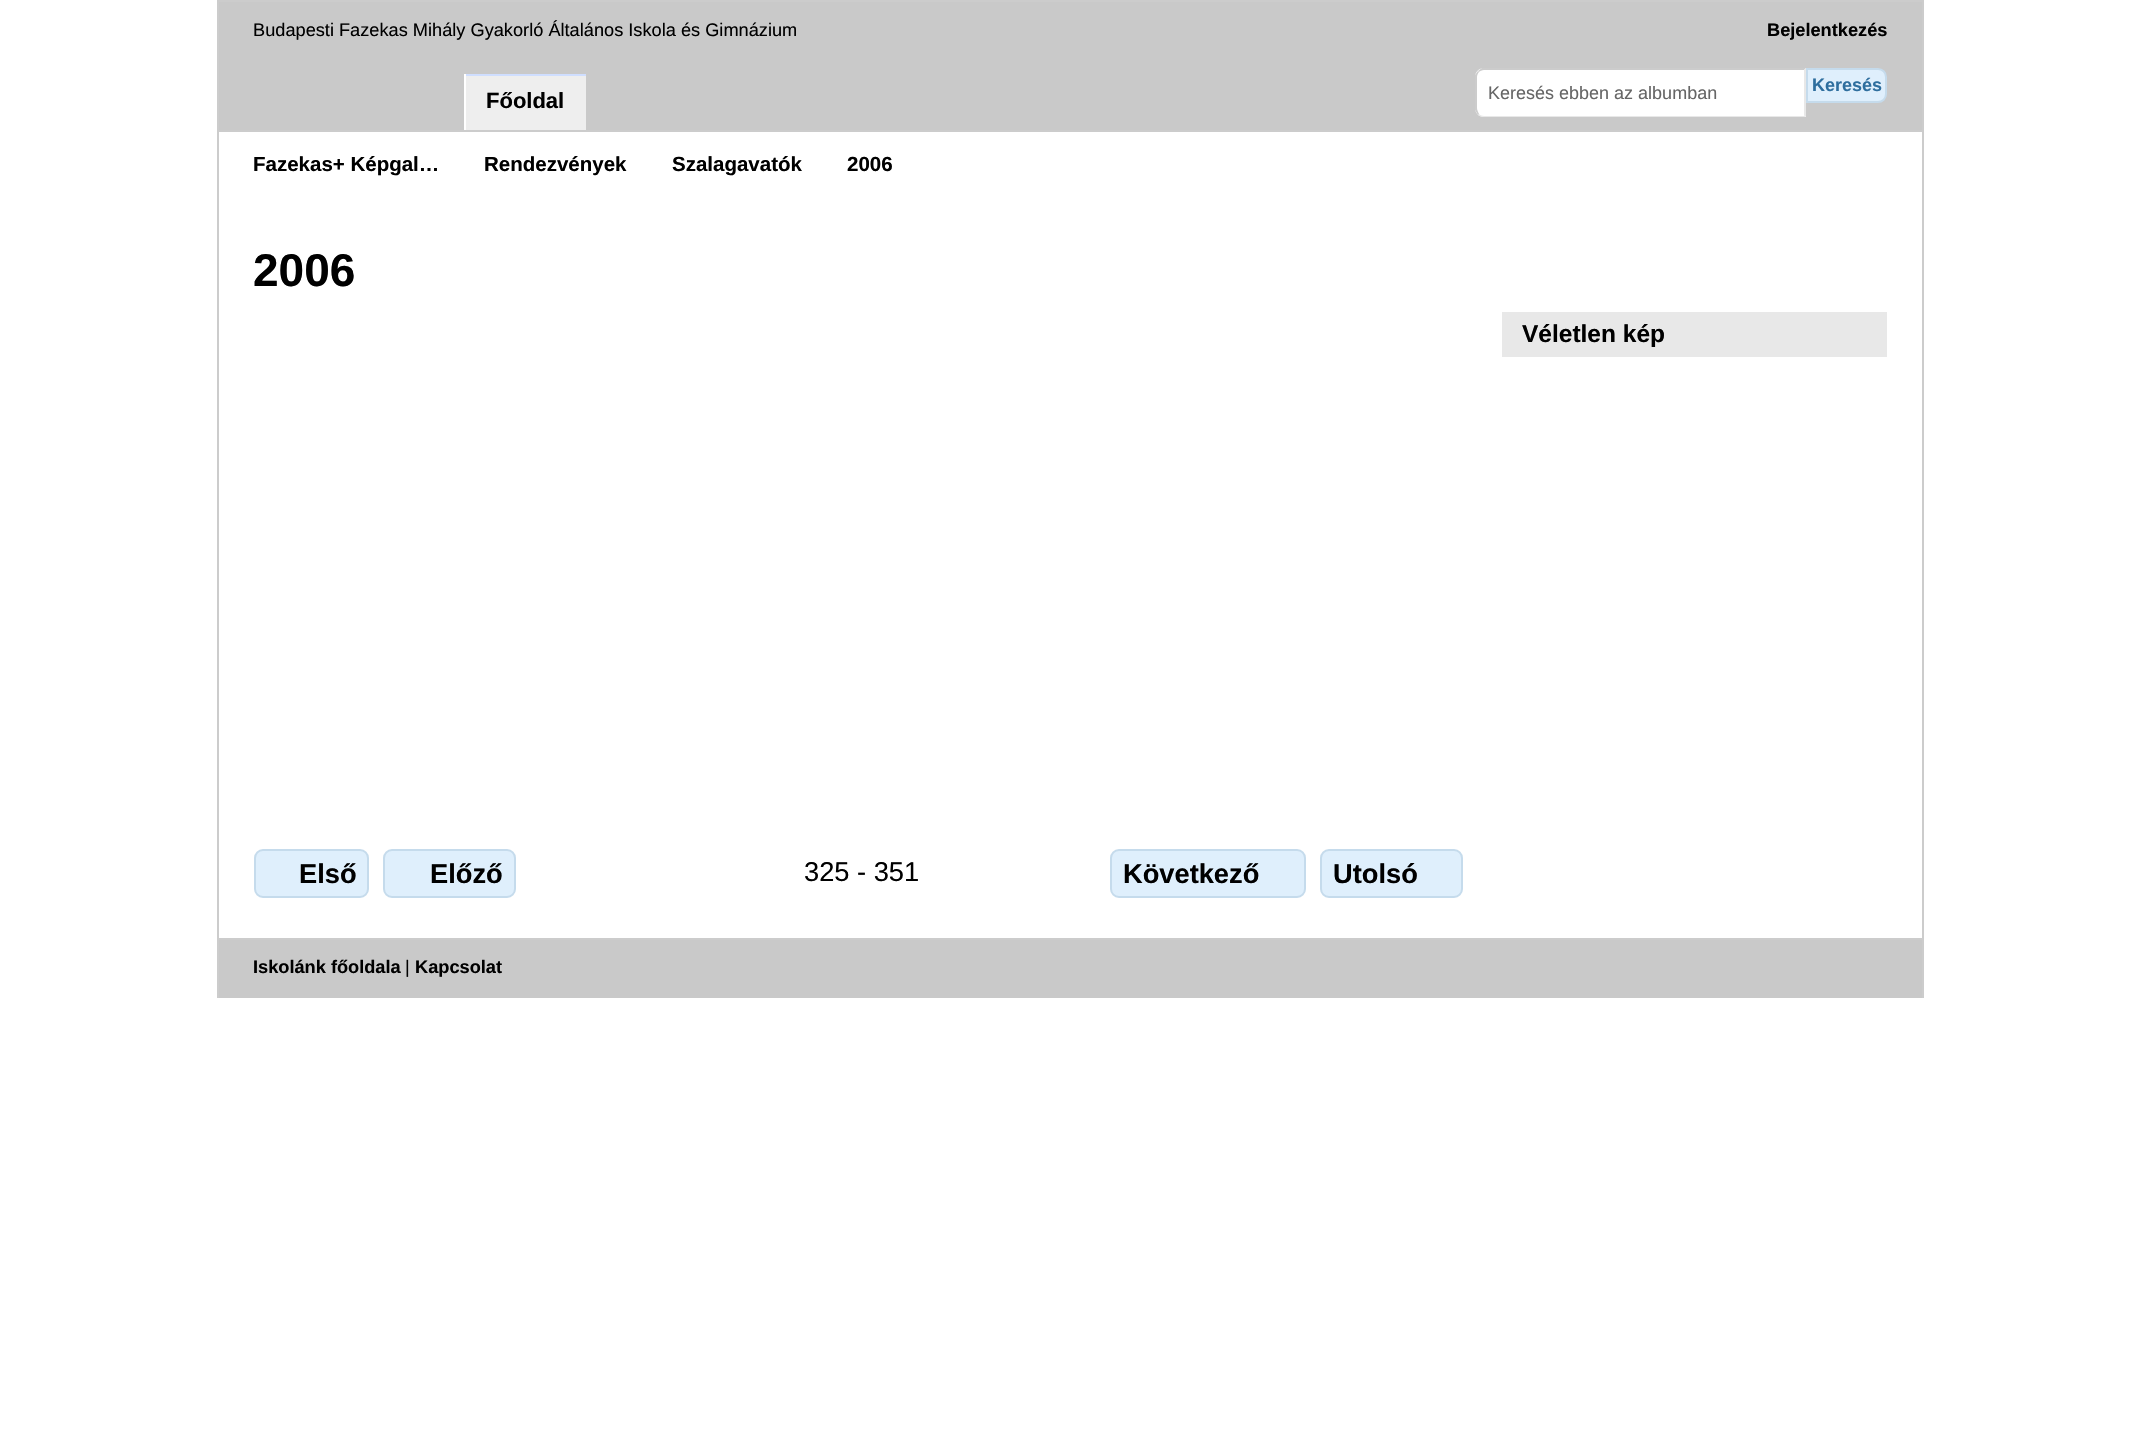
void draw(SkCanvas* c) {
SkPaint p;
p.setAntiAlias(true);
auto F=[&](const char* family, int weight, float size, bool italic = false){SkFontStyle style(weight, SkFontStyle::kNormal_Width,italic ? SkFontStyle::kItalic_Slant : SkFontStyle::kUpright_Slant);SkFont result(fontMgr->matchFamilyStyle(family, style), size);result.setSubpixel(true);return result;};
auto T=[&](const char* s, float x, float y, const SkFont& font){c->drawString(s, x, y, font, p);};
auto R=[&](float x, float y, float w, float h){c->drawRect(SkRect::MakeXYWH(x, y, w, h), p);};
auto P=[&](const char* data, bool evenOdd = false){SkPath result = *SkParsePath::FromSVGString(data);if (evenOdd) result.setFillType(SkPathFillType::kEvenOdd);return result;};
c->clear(0xffffffff);
p.setColor(0xffcccccc);
R(217,0,1706,2);
R(1922,0,2,998);
R(217,0,2,998);
p.setColor(0xffc9c9c9);
R(219,2,1703,128);
p.setColor(0xffcccccc);
R(219,130,1703,2);
auto f1 = F("Liberation Sans",400,18.2);
p.setColor(0xff000000);
T("Budapesti Fazekas Mihály Gyakorló Általános Iskola és Gimnázium",253,36,f1);
auto f2 = F("Liberation Sans",700,18.2);
T("Bejelentkezés",1767,36,f2);
p.setColor(0xffeeeeee);
R(466,76,120,54);
p.setColor(0xffcfdeff);
R(464,74,122,2);
p.setColor(0xffffffff);
R(464,74,2,56);
auto f3 = F("Liberation Sans",700,22);
p.setColor(0xff000000);
T("Főoldal",486,108,f3);
p.setColor(0xffffffff);
c->drawPath(P("M1484 68h322v49h-322c-5 0-9-4-9-9v-31c0-5 4-9 9-9z"),p);
p.setColor(0xffcccccc);
c->drawPath(P("M1484 70c-2 0-4 1-5 2l-1-1l4-3h324l-2 2z"),p);
p.setColor(0xffe8e8e8);
c->drawPath(P("M1806 68l-2 2v45l2 2z"),p);
c->drawPath(P("M1806 117h-322c-2 0-5-1-6-2l1-1c1 1 3 2 5 2h320v-1z"),p);
p.setColor(0xffcccccc);
c->drawPath(P("M1475 75l3-4l1 1c-1 1-2 3-2 5v31c0 2 1 4 2 6l-1 1c-1-2-2-3-3-5z"),p);
auto f4 = F("Liberation Sans",400,18);
p.setColor(0xff666666);
T("Keresés ebben az albumban",1488,99,f4);
p.setColor(0xffdfeffc);
c->drawPath(P("M1807 69h71c4.5 0 8 3.5 8 8v17c0 4.5-3.5 8-8 8h-71z"),p);
p.setStroke(true);
p.setStrokeWidth(2);
p.setColor(0xffc5dbec);
c->drawPath(P("M1807 69h71c4.5 0 8 3.5 8 8v17c0 4.5-3.5 8-8 8h-71z"),p);
auto f5 = F("Liberation Sans",700,18);
p.setStroke(false);
p.setColor(0xff2e6e9e);
T("Keresés",1812,91,f5);
auto f6 = F("Liberation Sans",700,20.5);
p.setColor(0xff000000);
T("Fazekas+ Képgal…",253,171,f6);
T("Rendezvények",484,171,f6);
T("Szalagavatók",672,171,f6);
T("2006",847,171,f6);
auto f7 = F("Liberation Sans",700,46);
T("2006",253,286,f7);
p.setColor(0xffdfeffc);
c->drawRoundRect(SkRect::MakeXYWH(255,850,113,47),8,8,p);
p.setStroke(true);
p.setColor(0xffc5dbec);
c->drawRoundRect(SkRect::MakeXYWH(255,850,113,47),8,8,p);
auto f8 = F("Liberation Sans",700,27.25);
p.setStroke(false);
p.setColor(0xff000000);
T("Első",299,883,f8);
p.setColor(0xffdfeffc);
c->drawRoundRect(SkRect::MakeXYWH(384,850,131,47),8,8,p);
p.setStroke(true);
p.setColor(0xffc5dbec);
c->drawRoundRect(SkRect::MakeXYWH(384,850,131,47),8,8,p);
p.setStroke(false);
p.setColor(0xff000000);
T("Előző",430,883,f8);
auto f9 = F("Liberation Sans",400,27.25);
T("325 - 351",804,881,f9);
p.setColor(0xffdfeffc);
c->drawRoundRect(SkRect::MakeXYWH(1111,850,194,47),8,8,p);
p.setStroke(true);
p.setColor(0xffc5dbec);
c->drawRoundRect(SkRect::MakeXYWH(1111,850,194,47),8,8,p);
p.setStroke(false);
p.setColor(0xff000000);
T("Következő",1123,883,f8);
p.setColor(0xffdfeffc);
c->drawRoundRect(SkRect::MakeXYWH(1321,850,141,47),8,8,p);
p.setStroke(true);
p.setColor(0xffc5dbec);
c->drawRoundRect(SkRect::MakeXYWH(1321,850,141,47),8,8,p);
p.setStroke(false);
p.setColor(0xff000000);
T("Utolsó",1333,883,f8);
p.setColor(0xffe8e8e8);
R(1502,312,385,45);
auto f10 = F("Liberation Sans",700,24.5);
p.setColor(0xff000000);
T("Véletlen kép",1522,342,f10);
p.setColor(0xffc9c9c9);
R(219,940,1703,58);
p.setColor(0xffcccccc);
R(219,938,1703,2);
p.setColor(0xff000000);
T("Iskolánk főoldala",253,973,f2);
T("|",405,973,f1);
T("Kapcsolat",415,973,f2);
}
